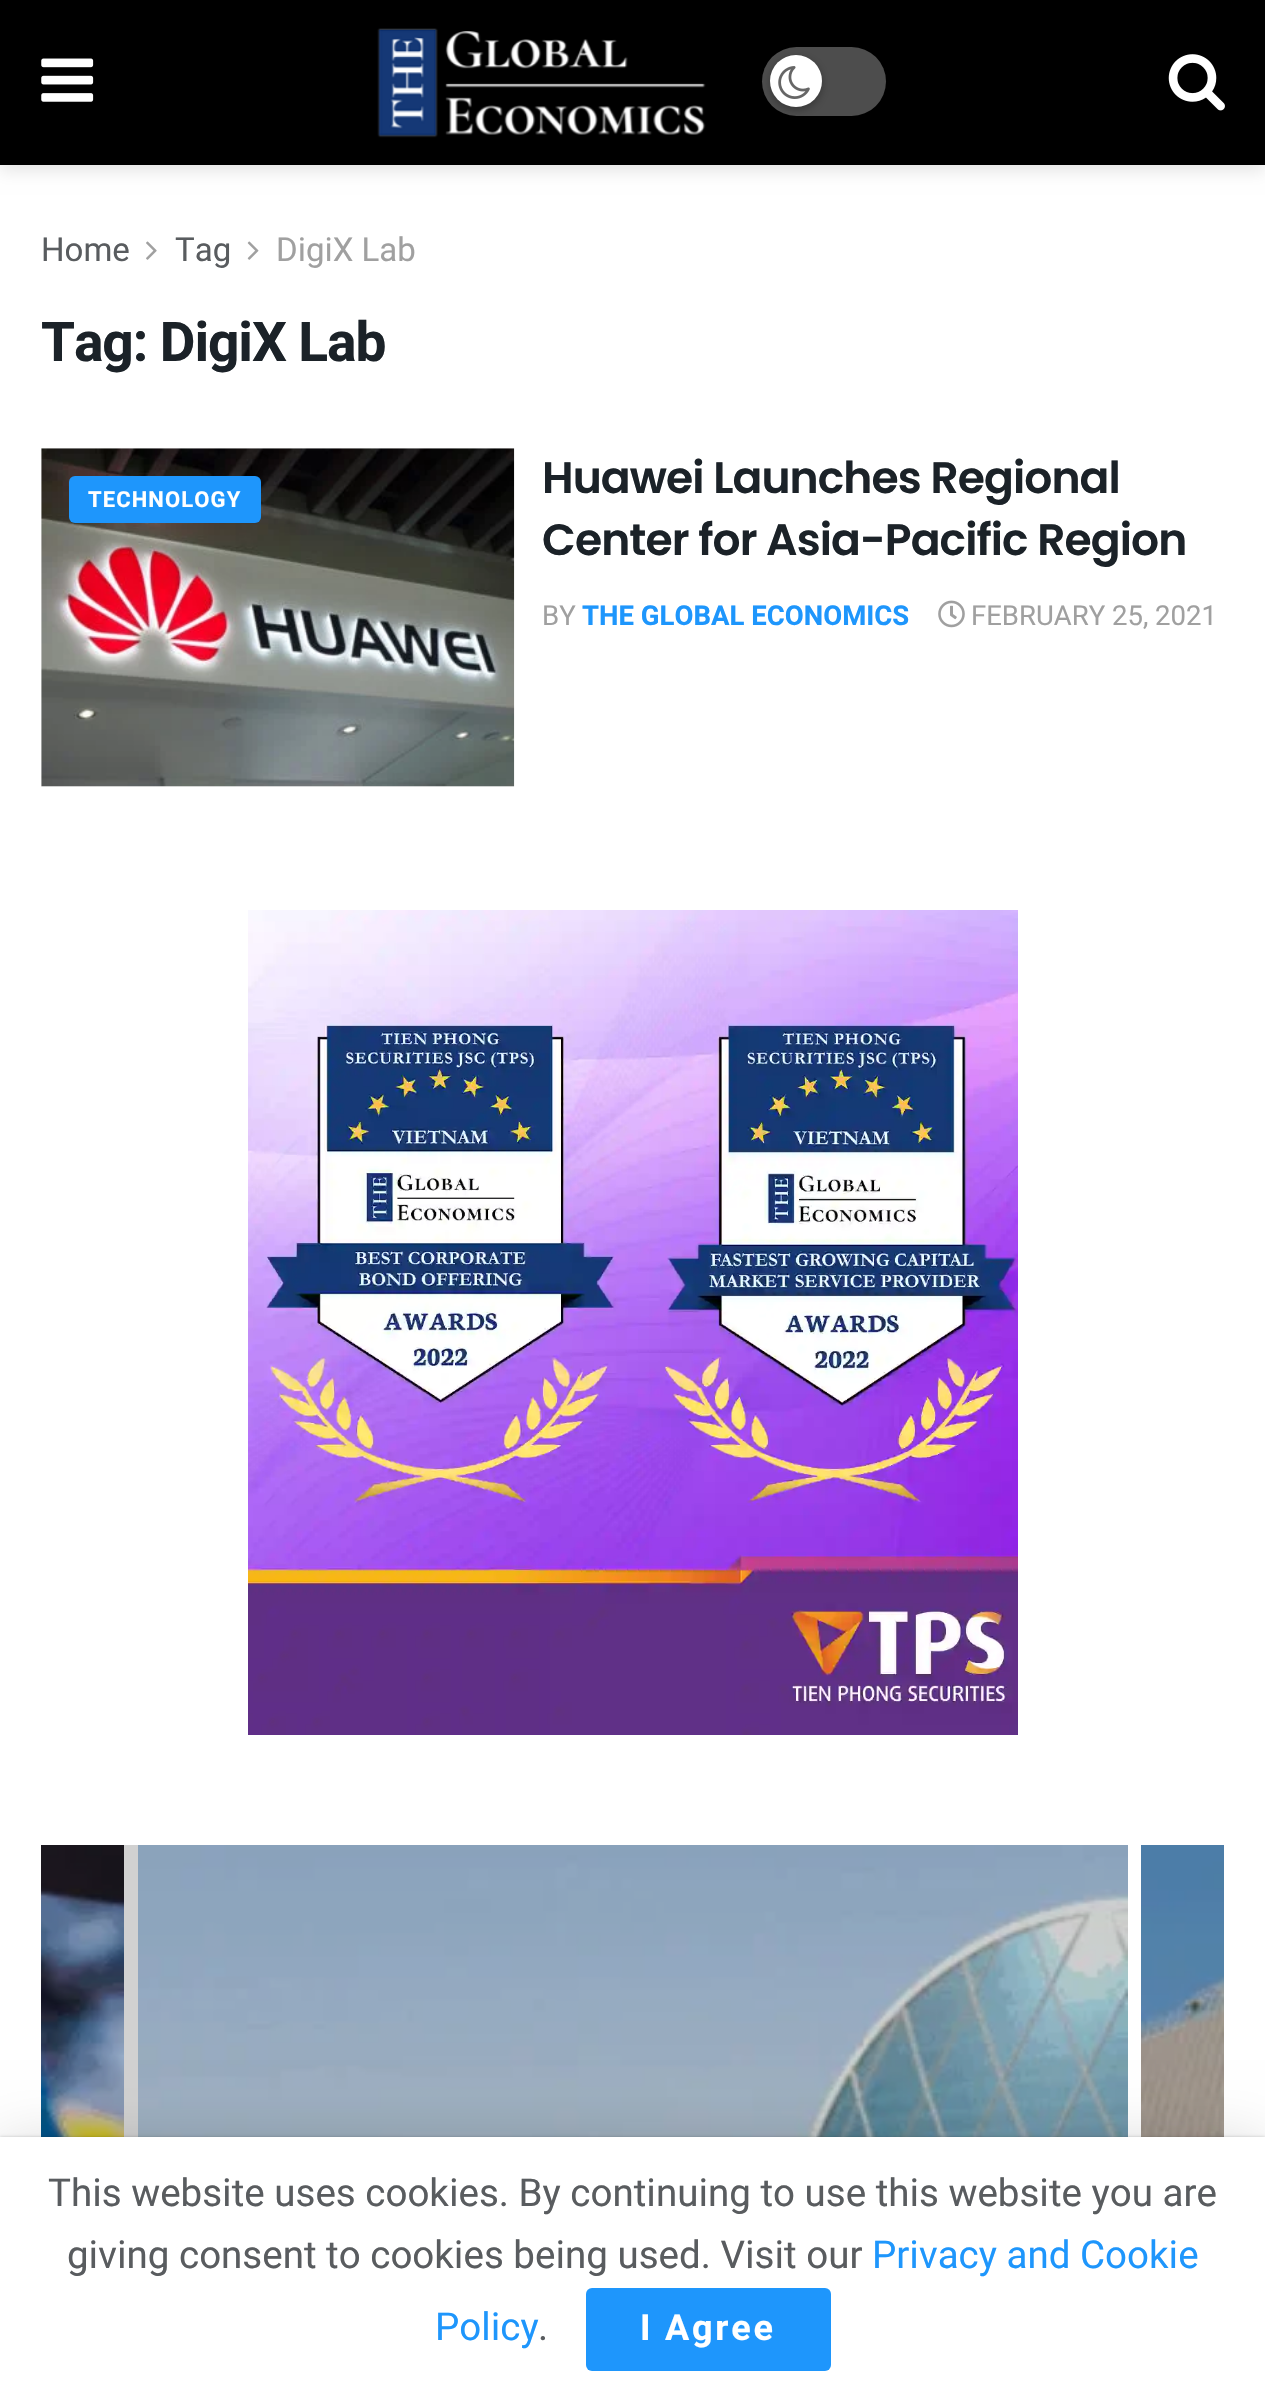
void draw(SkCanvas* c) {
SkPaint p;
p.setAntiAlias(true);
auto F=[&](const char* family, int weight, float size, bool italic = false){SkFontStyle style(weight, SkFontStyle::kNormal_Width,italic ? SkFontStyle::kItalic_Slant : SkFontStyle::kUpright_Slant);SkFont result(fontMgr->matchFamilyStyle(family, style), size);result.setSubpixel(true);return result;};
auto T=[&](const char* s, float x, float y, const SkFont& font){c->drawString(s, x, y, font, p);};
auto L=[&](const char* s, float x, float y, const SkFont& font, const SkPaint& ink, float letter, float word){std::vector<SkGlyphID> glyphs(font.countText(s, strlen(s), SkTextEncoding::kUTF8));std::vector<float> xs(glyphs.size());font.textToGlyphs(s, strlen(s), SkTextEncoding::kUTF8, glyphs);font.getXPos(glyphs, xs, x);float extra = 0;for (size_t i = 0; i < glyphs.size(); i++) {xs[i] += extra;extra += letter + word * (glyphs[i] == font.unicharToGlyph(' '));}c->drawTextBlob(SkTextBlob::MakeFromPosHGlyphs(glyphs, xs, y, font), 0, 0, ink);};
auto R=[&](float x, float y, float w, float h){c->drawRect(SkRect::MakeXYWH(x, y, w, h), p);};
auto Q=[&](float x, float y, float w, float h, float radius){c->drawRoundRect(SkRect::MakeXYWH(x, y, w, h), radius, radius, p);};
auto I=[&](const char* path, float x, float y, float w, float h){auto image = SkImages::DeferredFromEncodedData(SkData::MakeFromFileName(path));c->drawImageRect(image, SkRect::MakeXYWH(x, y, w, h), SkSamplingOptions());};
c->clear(0xffffffff);
p.setColor(0xffd1d1d1);
R(124,1845,14,292);
p.setColor(0x1a000000);
p.setMaskFilter(SkMaskFilter::MakeBlur(kNormal_SkBlurStyle, 8));
c->drawRect(SkRect::MakeXYWH(0,6,1265,165),p);
p.setMaskFilter(nullptr);
p.setColor(0xff000000);
R(0,0,1265,165);
I("1.png",41,58,53,44);
I("2.png",377,28,329,110);
p.setColor(0xff4d4d4d);
Q(762,47,124,69,34.5);
p.setColor(0x4d000000);
p.setMaskFilter(SkMaskFilter::MakeBlur(kNormal_SkBlurStyle, 4));
c->drawRoundRect(SkRect::MakeXYWH(770,58,52,52),26,26,p);
p.setMaskFilter(nullptr);
p.setColor(0xffffffff);
c->drawCircle(796,81,26,p);
I("3.png",778,66,32,33);
I("4.png",1168,54,57,57);
auto f1 = F("Heebo",400,33);
p.setColor(0xff595c5f);
T("Home",41,261,f1);
I("5.png",146,241,11,19);
T("Tag",175,261,f1);
I("6.png",247,241,12,19);
p.setColor(0xffa0a0a0);
T("DigiX Lab",276,261,f1);
auto f2 = F("Heebo",700,55);
p.setColor(0xff1b2228);
L("Tag: DigiX Lab",41,361,f2,p,-1.1,0);
p.setColor(0xfff7f7f7);
R(41,448,473,339);
I("7.png",41,448,474,339);
p.setColor(0xff1e96fc);
Q(69,476,192,47,6);
auto f3 = F("Heebo",700,22);
p.setColor(0xffffffff);
L("TECHNOLOGY",88,507,f3,p,1.1,0);
auto f4 = F("Poppins",600,44);
p.setColor(0xff1b2228);
L("Huawei Launches Regional",542,493,f4,p,-.9,0);
L("Center for Asia-Pacific Region",542,555,f4,p,-.9,0);
auto f5 = F("Heebo",400,27.5);
p.setColor(0xffa0a0a0);
T("BY",542,625,f5);
auto f6 = F("Heebo",700,27.5);
p.setColor(0xff1e96fc);
T("THE GLOBAL ECONOMICS",582,625,f6);
I("8.png",938,600,27,28);
p.setColor(0xffa0a0a0);
T("FEBRUARY 25, 2021",971,625,f5);
I("9.png",248,910,770,825);
I("10.png",41,1845,83,292);
I("11.png",138,1845,990,292);
I("12.png",1141,1845,83,292);
p.setColor(0x26000000);
p.setMaskFilter(SkMaskFilter::MakeBlur(kNormal_SkBlurStyle, 27.5));
c->drawRect(SkRect::MakeXYWH(0,2142,1265,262),p);
p.setMaskFilter(nullptr);
p.setColor(0x33000000);
p.setMaskFilter(SkMaskFilter::MakeBlur(kNormal_SkBlurStyle, 1.5));
c->drawRect(SkRect::MakeXYWH(0,2137,1265,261),p);
p.setMaskFilter(nullptr);
p.setColor(0xffffffff);
R(0,2137,1265,259);
auto f7 = F("Heebo",400,38.5);
p.setColor(0xff595c5f);
T("This website uses cookies. By continuing to use this website you are",48,2206,f7);
T("giving consent to cookies being used. Visit our",67,2268,f7);
p.setColor(0xff1e96fc);
T("Privacy and Cookie",872,2268,f7);
T("Policy",435,2340,f7);
p.setColor(0xff595c5f);
T(".",538,2340,f7);
p.setColor(0xff1e96fc);
Q(586,2288,245,83,6);
auto f8 = F("Heebo",700,36);
p.setColor(0xffffffff);
L("I Agree",640,2340,f8,p,2.75,0);
}
